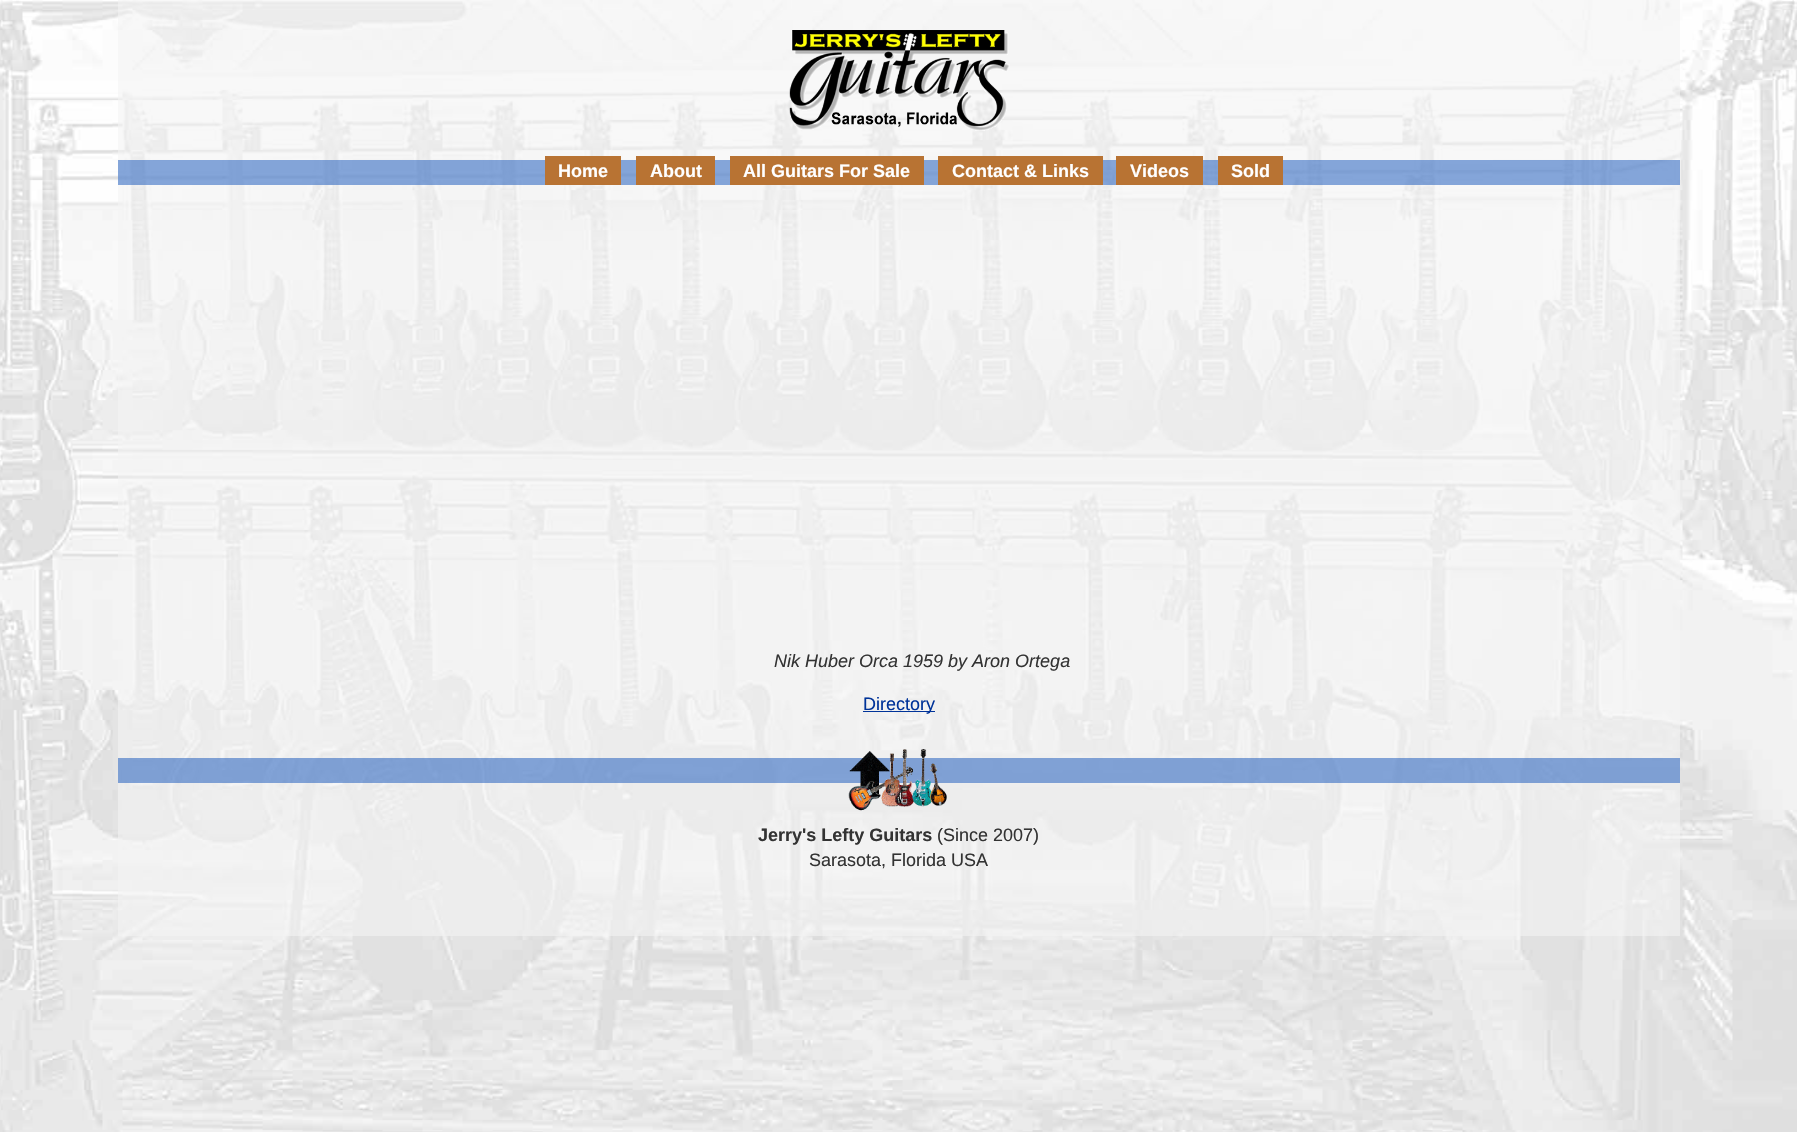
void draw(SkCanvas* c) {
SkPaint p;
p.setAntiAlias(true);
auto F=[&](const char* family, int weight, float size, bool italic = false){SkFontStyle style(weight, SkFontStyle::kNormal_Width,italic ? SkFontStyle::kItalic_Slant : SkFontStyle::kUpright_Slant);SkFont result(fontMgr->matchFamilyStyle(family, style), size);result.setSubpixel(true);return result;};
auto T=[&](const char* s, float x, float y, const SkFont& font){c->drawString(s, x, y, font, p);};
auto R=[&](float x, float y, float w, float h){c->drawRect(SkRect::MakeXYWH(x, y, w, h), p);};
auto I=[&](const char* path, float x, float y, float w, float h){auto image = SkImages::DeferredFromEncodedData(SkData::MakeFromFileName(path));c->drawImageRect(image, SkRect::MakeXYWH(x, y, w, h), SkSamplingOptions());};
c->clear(0xffffffff);
I("1.png",0,0,1797,1132);
p.setColor(0x99f4f4f4);
R(118,0,1562,936);
I("2.png",789,30,221,101);
p.setColor(0x800f52ba);
R(118,160,1562,25);
p.setColor(0xffb87333);
R(545,156,76,29);
auto f1 = F("Liberation Sans",700,18);
p.setColor(0xffffffff);
T("Home",558,177,f1);
p.setColor(0xffb87333);
R(636,156,79,29);
p.setColor(0xffffffff);
T("About",650,177,f1);
p.setColor(0xffb87333);
R(730,156,194,29);
p.setColor(0xffffffff);
T("All Guitars For Sale",743,177,f1);
p.setColor(0xffb87333);
R(938,156,165,29);
p.setColor(0xffffffff);
T("Contact & Links",952,177,f1);
p.setColor(0xffb87333);
R(1116,156,87,29);
p.setColor(0xffffffff);
T("Videos",1130,177,f1);
p.setColor(0xffb87333);
R(1218,156,65,29);
p.setColor(0xffffffff);
T("Sold",1231,177,f1);
auto f2 = F("Liberation Sans",400,18,true);
p.setColor(0xff333333);
T("Nik Huber Orca 1959 by Aron Ortega",774,667,f2);
p.setColor(0xff003399);
R(863,711,72,1);
auto f3 = F("Liberation Sans",400,18);
T("Directory",863,710,f3);
p.setColor(0x800f52ba);
R(118,758,1562,25);
I("3.png",848,749,99,62);
p.setColor(0xff333333);
T("Jerry's Lefty Guitars",758,841,f1);
T("(Since 2007)",937,841,f3);
T("Sarasota, Florida USA",809,866,f3);
}
